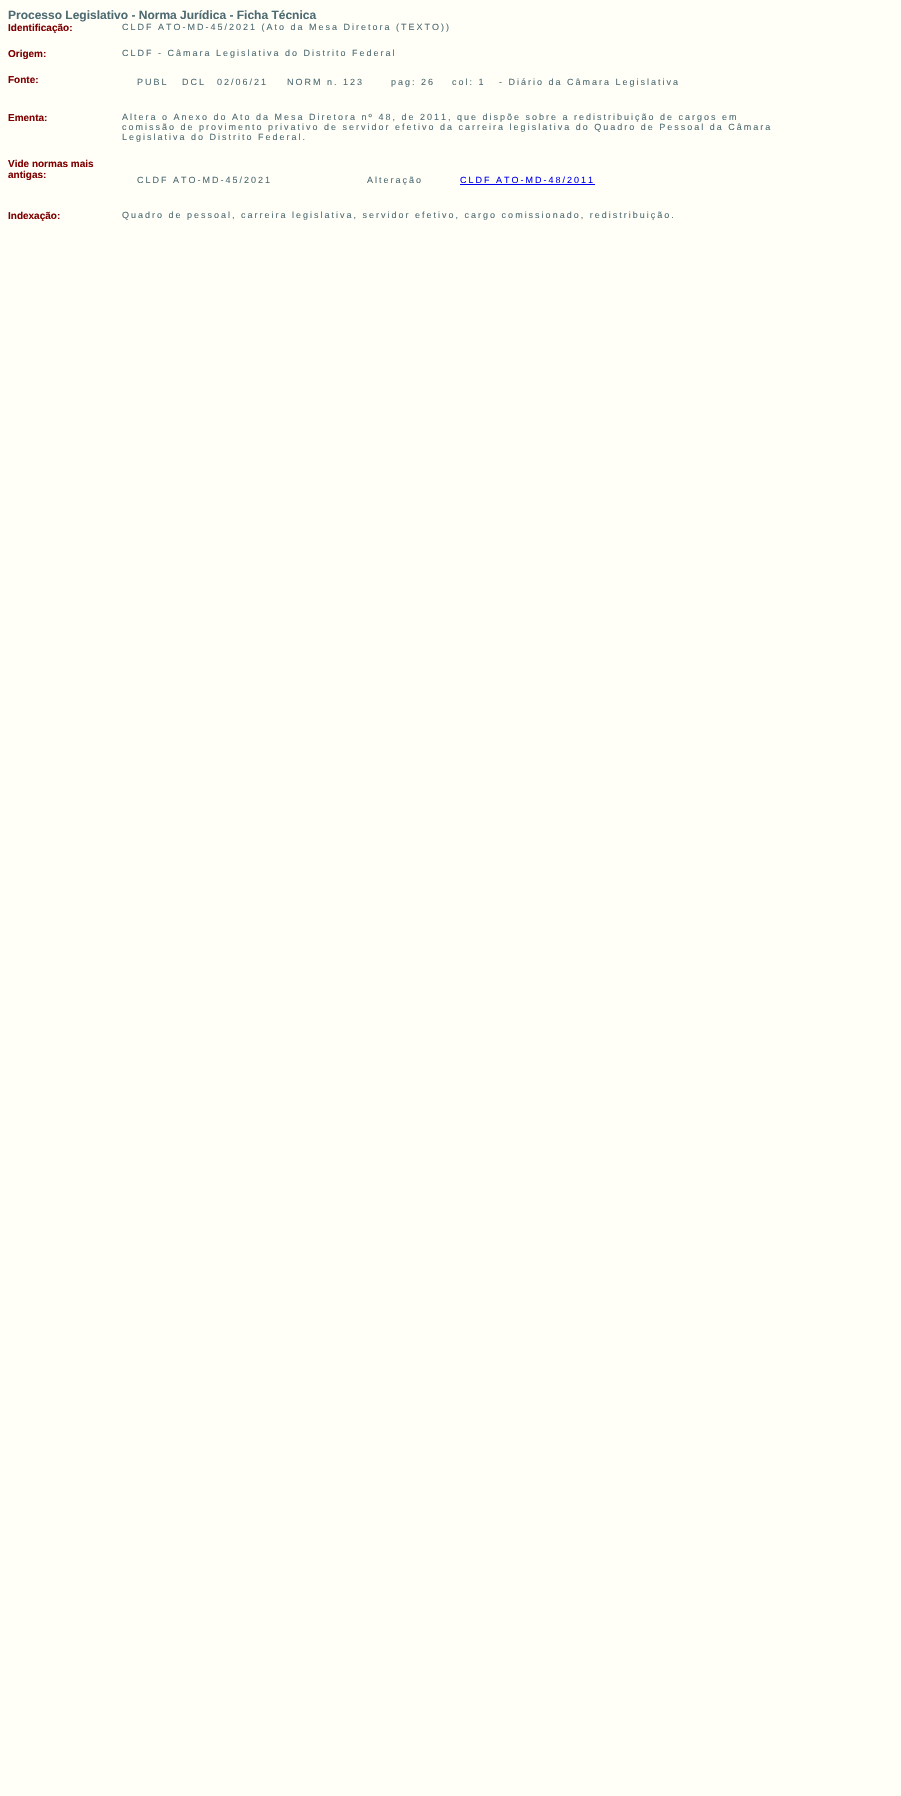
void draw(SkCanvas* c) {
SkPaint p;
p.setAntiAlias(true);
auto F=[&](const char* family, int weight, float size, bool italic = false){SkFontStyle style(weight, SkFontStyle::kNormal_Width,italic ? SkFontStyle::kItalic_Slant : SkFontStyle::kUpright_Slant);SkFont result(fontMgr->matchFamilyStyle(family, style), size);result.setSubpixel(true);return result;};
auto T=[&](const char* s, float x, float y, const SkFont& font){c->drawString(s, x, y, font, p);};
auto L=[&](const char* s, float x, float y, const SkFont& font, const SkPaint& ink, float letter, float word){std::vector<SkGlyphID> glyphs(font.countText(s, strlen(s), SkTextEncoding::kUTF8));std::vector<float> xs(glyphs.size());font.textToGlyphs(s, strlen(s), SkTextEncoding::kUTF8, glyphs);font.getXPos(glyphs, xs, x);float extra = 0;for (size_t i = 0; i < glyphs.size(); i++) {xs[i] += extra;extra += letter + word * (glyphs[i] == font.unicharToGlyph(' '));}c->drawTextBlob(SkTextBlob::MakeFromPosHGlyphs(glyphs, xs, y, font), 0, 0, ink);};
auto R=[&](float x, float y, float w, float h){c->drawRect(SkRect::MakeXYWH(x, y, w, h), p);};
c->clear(0xfffffff8);
auto f1 = F("Liberation Sans",700,12);
p.setColor(0xff4f6b72);
T("Processo Legislativo - Norma Jurídica - Ficha Técnica",8,19,f1);
auto f2 = F("Liberation Sans",700,10);
p.setColor(0xff800000);
T("Identificação:",8,31,f2);
auto f3 = F("Liberation Sans",400,9);
p.setColor(0xff4f6b72);
L("CLDF ATO-MD-45/2021 (Ato da Mesa Diretora (TEXTO))",122,30,f3,p,2,0);
p.setColor(0xff800000);
T("Origem:",8,57,f2);
p.setColor(0xff4f6b72);
L("CLDF - Câmara Legislativa do Distrito Federal",122,56,f3,p,2,0);
p.setColor(0xff800000);
T("Fonte:",8,83,f2);
p.setColor(0xff4f6b72);
L("PUBL",137,85,f3,p,2,0);
L("DCL",182,85,f3,p,2,0);
L("02/06/21",217,85,f3,p,2,0);
L("NORM n. 123",287,85,f3,p,2,0);
L("pag: 26",391,85,f3,p,2,0);
L("col: 1",452,85,f3,p,2,0);
L("- Diário da Câmara Legislativa",499,85,f3,p,2,0);
p.setColor(0xff800000);
T("Ementa:",8,121,f2);
p.setColor(0xff4f6b72);
L("Altera o Anexo do Ato da Mesa Diretora nº 48, de 2011, que dispõe sobre a redistribuição de cargos em",122,120,f3,p,2,0);
L("comissão de provimento privativo de servidor efetivo da carreira legislativa do Quadro de Pessoal da Câmara",122,130,f3,p,2,0);
L("Legislativa do Distrito Federal.",122,140,f3,p,2,0);
p.setColor(0xff800000);
T("Vide normas mais",8,167,f2);
T("antigas:",8,178,f2);
p.setColor(0xff4f6b72);
L("CLDF ATO-MD-45/2021",137,183,f3,p,2,0);
L("Alteração",367,183,f3,p,2,0);
p.setColor(0xff0000ee);
L("CLDF ATO-MD-48/2011",460,183,f3,p,2,0);
R(460,184,135,1);
p.setColor(0xff800000);
T("Indexação:",8,219,f2);
p.setColor(0xff4f6b72);
L("Quadro de pessoal, carreira legislativa, servidor efetivo, cargo comissionado, redistribuição.",122,218,f3,p,2,0);
}
